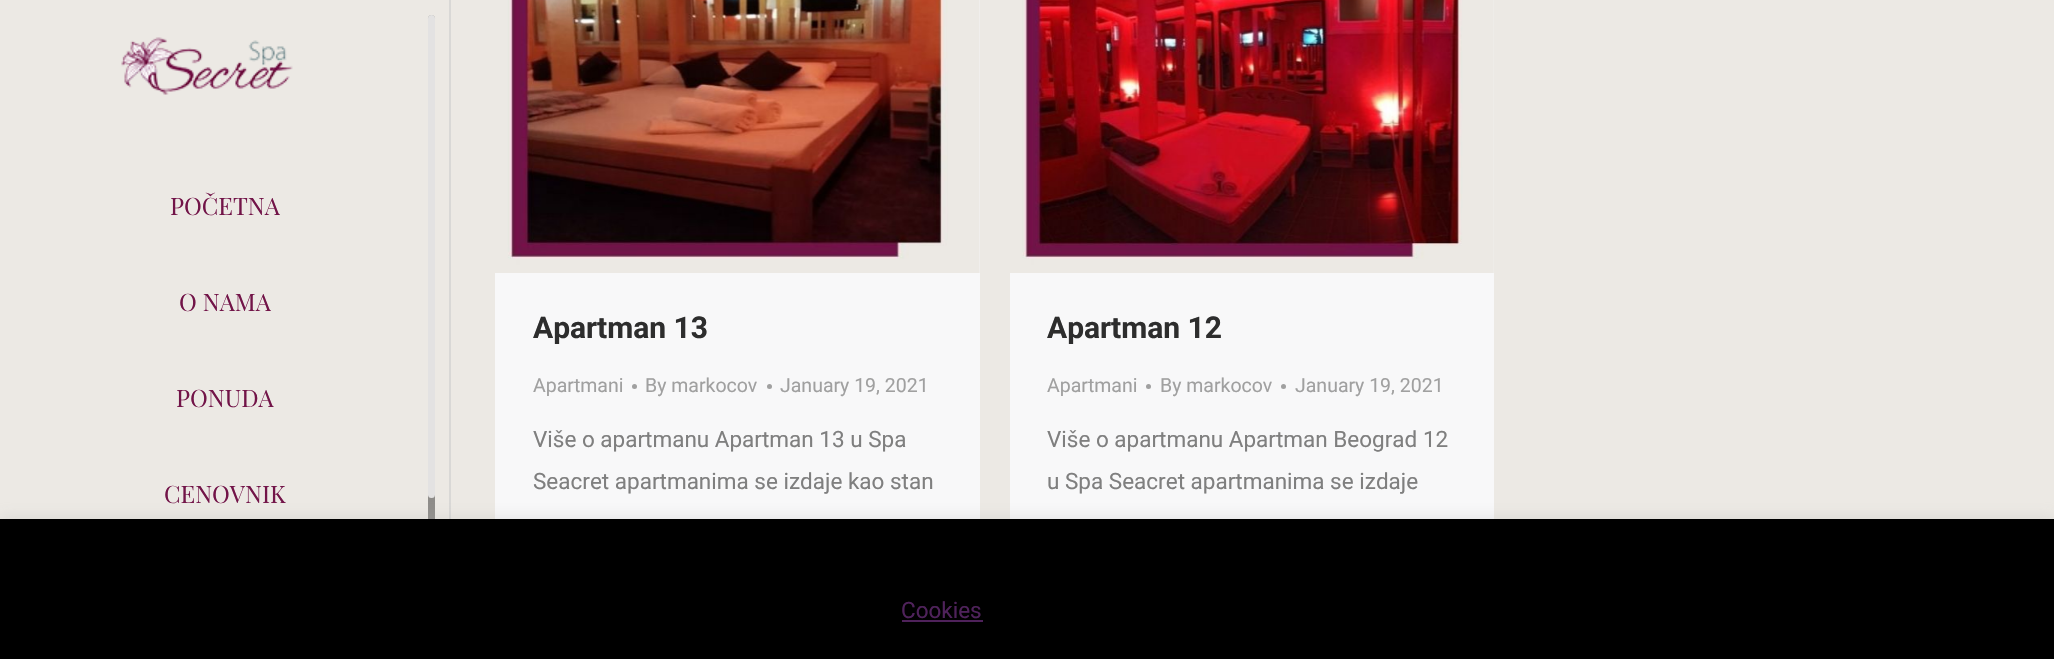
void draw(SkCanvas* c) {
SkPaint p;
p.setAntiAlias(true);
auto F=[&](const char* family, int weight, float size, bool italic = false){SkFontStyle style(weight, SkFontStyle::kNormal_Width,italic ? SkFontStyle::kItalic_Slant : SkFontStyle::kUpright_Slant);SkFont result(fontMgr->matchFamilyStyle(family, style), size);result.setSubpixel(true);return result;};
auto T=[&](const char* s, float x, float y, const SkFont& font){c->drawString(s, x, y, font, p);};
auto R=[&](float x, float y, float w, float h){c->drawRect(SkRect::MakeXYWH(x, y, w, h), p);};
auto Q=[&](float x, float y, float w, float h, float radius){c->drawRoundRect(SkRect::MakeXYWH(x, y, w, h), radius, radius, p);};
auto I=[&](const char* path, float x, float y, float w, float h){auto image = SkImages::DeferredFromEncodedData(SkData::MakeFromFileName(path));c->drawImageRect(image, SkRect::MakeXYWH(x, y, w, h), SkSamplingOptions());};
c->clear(0xffece9e4);
p.setColor(0xffd9d8d6);
R(449,0,2,519);
I("1.png",121,37,172,58);
auto f1 = F("Playfair Display",400,24);
p.setColor(0xff721448);
T("POČETNA",170,215,f1);
T("O NAMA",179,311,f1);
T("PONUDA",176,407,f1);
T("CENOVNIK",164,503,f1);
p.setColor(0xff8e8c89);
Q(428,15,7,630,3.5);
p.setColor(0xbfffffff);
Q(428,15,7,483,3.5);
p.setColor(0xfff8f8f9);
R(495,0,485,519);
I("2.png",495,0,485,273);
auto f2 = F("Roboto",700,30);
p.setColor(0xff2d2d2d);
T("Apartman 13",533,338,f2);
auto f3 = F("Roboto",400,19.5);
p.setColor(0xffa0a0a0);
T("Apartmani",533,392,f3);
c->drawCircle(634.5,386.5,2.5,p);
T("By markocov",645,392,f3);
c->drawCircle(769.5,386.5,2.5,p);
T("January 19, 2021",780,392,f3);
auto f4 = F("Roboto",400,22.5);
p.setColor(0xff7f7f7f);
T("Više o apartmanu Apartman 13 u Spa",533,447,f4);
T("Seacret apartmanima se izdaje kao stan",533,489,f4);
p.setColor(0xfff8f8f9);
R(1010,0,484,519);
I("3.png",1010,0,484,273);
p.setColor(0xff2d2d2d);
T("Apartman 12",1047,338,f2);
p.setColor(0xffa0a0a0);
T("Apartmani",1047,392,f3);
c->drawCircle(1148.5,386.5,2.5,p);
T("By markocov",1160,392,f3);
c->drawCircle(1283.5,386.5,2.5,p);
T("January 19, 2021",1295,392,f3);
p.setColor(0xff7f7f7f);
T("Više o apartmanu Apartman Beograd 12",1047,447,f4);
T("u Spa Seacret apartmanima se izdaje",1047,489,f4);
p.setColor(0x4dacabab);
p.setMaskFilter(SkMaskFilter::MakeBlur(kNormal_SkBlurStyle, 7.5));
c->drawRect(SkRect::MakeXYWH(0,518,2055,141),p);
p.setMaskFilter(nullptr);
p.setColor(0xff000000);
R(0,519,2054,140);
p.setColor(0xff4f225b);
T("Cookies",901,618,f4);
R(902,620,81,2);
}
